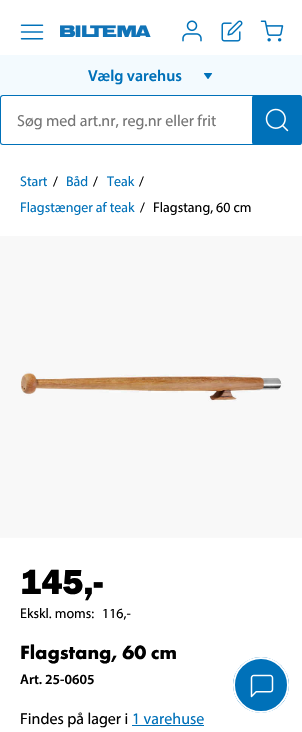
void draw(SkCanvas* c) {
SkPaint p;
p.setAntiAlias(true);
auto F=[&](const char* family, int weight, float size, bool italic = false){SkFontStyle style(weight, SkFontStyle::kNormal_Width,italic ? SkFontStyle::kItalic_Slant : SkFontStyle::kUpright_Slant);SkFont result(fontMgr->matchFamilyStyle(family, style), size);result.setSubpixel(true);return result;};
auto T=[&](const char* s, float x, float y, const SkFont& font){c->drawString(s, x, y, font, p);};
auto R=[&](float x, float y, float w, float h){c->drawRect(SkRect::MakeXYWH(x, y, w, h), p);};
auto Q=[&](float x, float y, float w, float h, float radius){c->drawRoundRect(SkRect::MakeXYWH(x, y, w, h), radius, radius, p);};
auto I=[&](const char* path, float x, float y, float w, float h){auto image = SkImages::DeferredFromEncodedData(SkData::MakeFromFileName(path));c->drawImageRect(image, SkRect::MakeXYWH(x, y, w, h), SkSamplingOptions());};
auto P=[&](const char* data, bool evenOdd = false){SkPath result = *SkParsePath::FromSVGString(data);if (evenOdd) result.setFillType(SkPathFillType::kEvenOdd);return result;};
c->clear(0xffffffff);
I("1.png",20,24,24,16);
I("2.png",60,25,91,12);
I("3.png",182,20,20,22);
I("4.png",221,20,22,22);
I("5.png",260,20,24,22);
p.setColor(0xfff3fafe);
R(0,55,302,40);
auto f1 = F("Myriad",600,16);
p.setColor(0xff0071b9);
T("Vælg varehus",88,81,f1);
I("6.png",203,73,10,6);
c->drawPath(P("M3 95h296c2 0 3 1 3 3v44c0 2-1 3-3 3h-296c-2 0-3-1-3-3v-44c0-2 1-3 3-3zm0 1h296c2 0 3 1 3 2v44c0 1-1 2-3 2h-296c-1 0-2-1-2-2v-44c0-1 1-2 2-2z",true),p);
auto f2 = F("Myriad",400,16);
p.setColor(0xff757575);
T("Søg med art.nr, reg.nr eller frit",17,126,f2);
p.setColor(0xff0071b9);
Q(252,95,50,50,3);
I("7.png",265,108,24,24);
auto f3 = F("Myriad",400,14);
T("Start",20,186,f3);
p.setColor(0xff000000);
T("/",53,186,f3);
p.setColor(0xff0071b9);
T("Båd",66,186,f3);
p.setColor(0xff000000);
T("/",93,186,f3);
p.setColor(0xff0071b9);
T("Teak",107,186,f3);
p.setColor(0xff000000);
T("/",139,186,f3);
p.setColor(0xff0071b9);
T("Flagstænger af teak",20,212,f3);
p.setColor(0xff000000);
T("/",140,212,f3);
T("Flagstang, 60 cm",153,212,f3);
I("8.png",0,236,302,302);
auto f4 = F("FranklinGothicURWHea",900,36);
T("145,-",20,594,f4);
T("Ekskl. moms:",20,618,f3);
T("116,-",102,618,f3);
auto f5 = F("Futura PT",700,20);
T("Flagstang, 60 cm",20,659,f5);
auto f6 = F("Myriad",600,14);
T("Art. 25-0605",20,684,f6);
T("Findes på lager i",20,724,f2);
p.setColor(0xff0071b9);
T("1 varehuse",132,724,f2);
R(132,725,72,1);
I("9.png",233,657,56,56);
}
